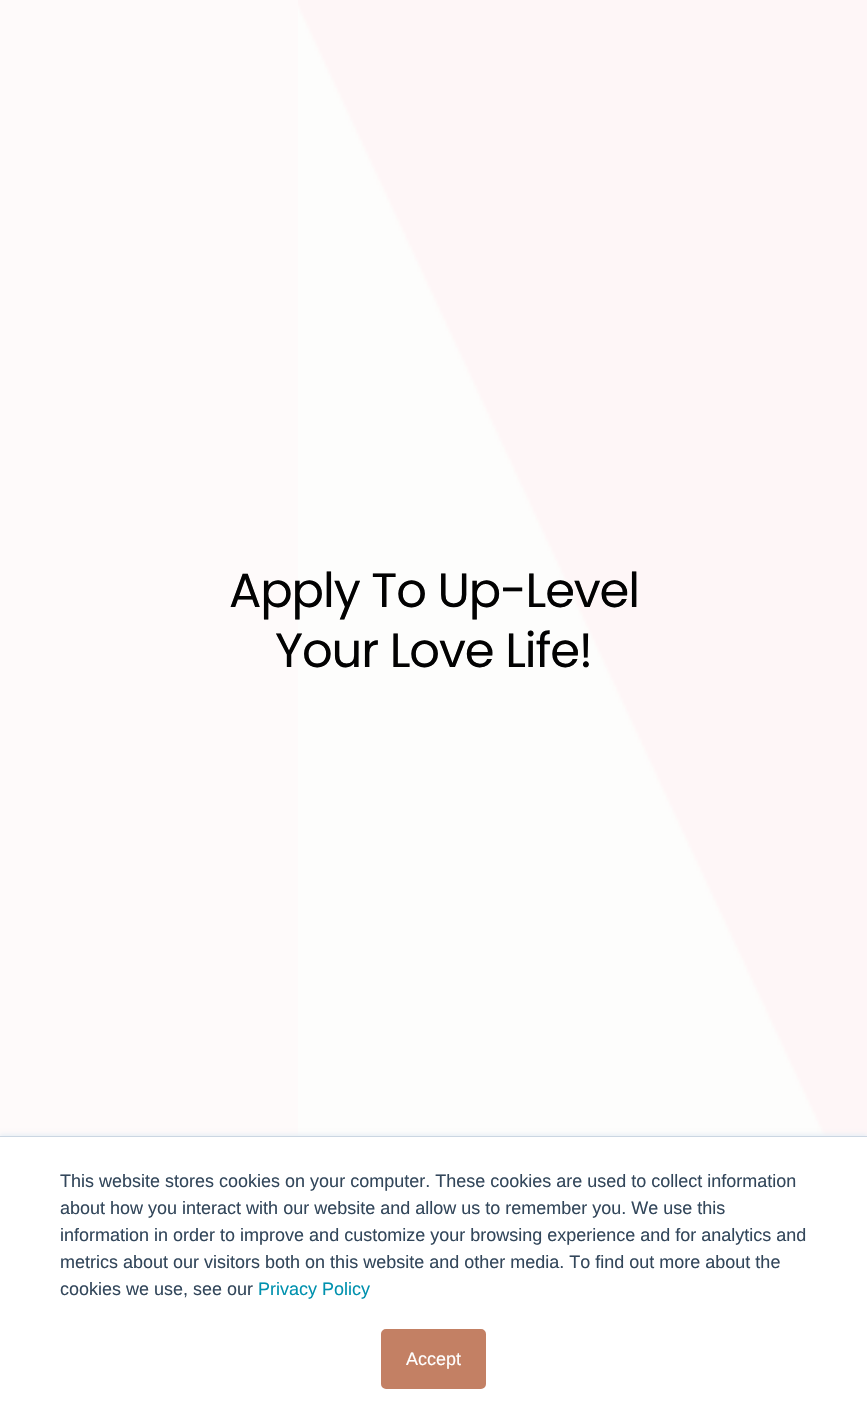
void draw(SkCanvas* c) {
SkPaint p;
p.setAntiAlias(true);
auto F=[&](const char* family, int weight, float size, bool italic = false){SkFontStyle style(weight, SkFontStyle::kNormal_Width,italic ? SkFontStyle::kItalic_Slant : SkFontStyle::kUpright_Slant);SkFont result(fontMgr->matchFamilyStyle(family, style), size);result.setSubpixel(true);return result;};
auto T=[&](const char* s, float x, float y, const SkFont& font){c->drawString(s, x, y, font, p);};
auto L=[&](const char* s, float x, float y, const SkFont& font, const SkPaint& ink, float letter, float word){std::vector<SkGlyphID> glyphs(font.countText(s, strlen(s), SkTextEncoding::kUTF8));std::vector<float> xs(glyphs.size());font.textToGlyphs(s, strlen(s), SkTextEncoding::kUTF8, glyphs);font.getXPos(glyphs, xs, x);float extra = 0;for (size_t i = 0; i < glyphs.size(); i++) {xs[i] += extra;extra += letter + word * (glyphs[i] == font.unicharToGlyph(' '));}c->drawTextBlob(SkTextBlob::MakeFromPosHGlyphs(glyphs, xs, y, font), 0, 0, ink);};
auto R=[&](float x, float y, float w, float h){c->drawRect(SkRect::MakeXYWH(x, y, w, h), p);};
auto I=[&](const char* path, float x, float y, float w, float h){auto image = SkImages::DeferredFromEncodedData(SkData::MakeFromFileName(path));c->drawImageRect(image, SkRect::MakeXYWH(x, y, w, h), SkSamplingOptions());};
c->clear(0xfffefafa);
I("1.png",298,0,569,1136);
auto f1 = F("Poppins",400,48);
p.setColor(0xff020202);
L("Apply To Up-Level",229,607,f1,p,-1.1,0);
L("Your Love Life!",275,667,f1,p,-1.1,0);
p.setColor(0xffeaf0f6);
p.setMaskFilter(SkMaskFilter::MakeBlur(kNormal_SkBlurStyle, 2));
c->drawRect(SkRect::MakeXYWH(0,1134,867,293),p);
p.setMaskFilter(nullptr);
p.setColor(0xffcbd6e2);
R(0,1136,867,1);
p.setColor(0xffffffff);
R(0,1137,867,290);
auto f2 = F("Liberation Sans",400,18);
p.setColor(0xff33475b);
T("This website stores cookies on your computer. These cookies are used to collect information",60,1187,f2);
T("about how you interact with our website and allow us to remember you. We use this",60,1214,f2);
T("information in order to improve and customize your browsing experience and for analytics and",60,1241,f2);
T("metrics about our visitors both on this website and other media. To find out more about the",60,1268,f2);
T("cookies we use, see our",60,1295,f2);
p.setColor(0xff0091ae);
T("Privacy Policy",258,1295,f2);
p.setColor(0xffc38064);
c->drawRoundRect(SkRect::MakeXYWH(382,1330,103,58),4,4,p);
p.setStroke(true);
p.setStrokeWidth(2);
c->drawRoundRect(SkRect::MakeXYWH(382,1330,103,58),4,4,p);
p.setStroke(false);
p.setColor(0xffffffff);
T("Accept",406,1365,f2);
}
